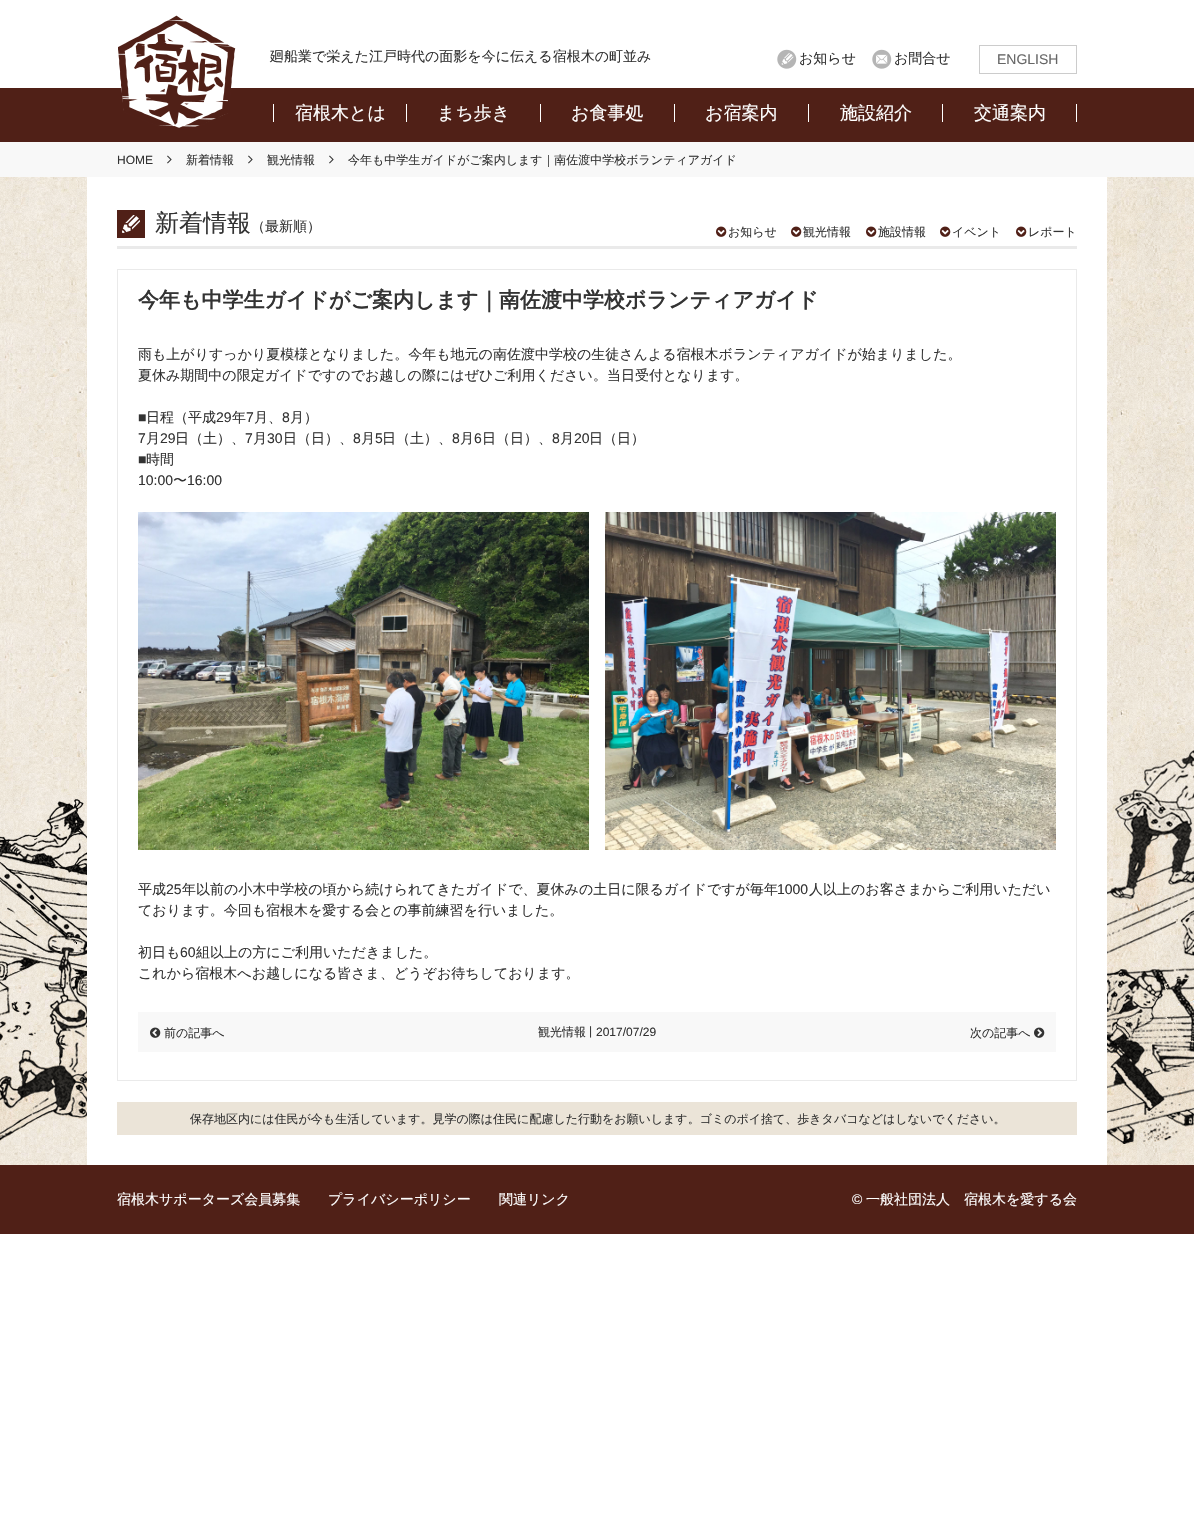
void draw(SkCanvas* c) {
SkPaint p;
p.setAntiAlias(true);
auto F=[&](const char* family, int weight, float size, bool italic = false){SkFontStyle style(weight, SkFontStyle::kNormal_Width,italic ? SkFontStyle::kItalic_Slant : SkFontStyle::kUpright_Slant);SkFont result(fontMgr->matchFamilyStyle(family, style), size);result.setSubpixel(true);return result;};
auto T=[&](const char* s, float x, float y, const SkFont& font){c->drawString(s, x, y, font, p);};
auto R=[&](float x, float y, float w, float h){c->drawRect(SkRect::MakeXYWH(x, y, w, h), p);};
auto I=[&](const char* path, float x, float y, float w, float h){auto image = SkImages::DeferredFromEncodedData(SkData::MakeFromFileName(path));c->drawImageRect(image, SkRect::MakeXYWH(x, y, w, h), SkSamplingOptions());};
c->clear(0xffffffff);
p.setColor(0xff502017);
R(0,88,1194,54);
I("1.png",118,15,118,113);
auto f1 = F("WenQuanYi Zen Hei",500,14);
p.setColor(0xff333333);
T("廻船業で栄えた江戸時代の面影を今に伝える宿根木の町並み",270,61,f1);
I("2.png",777,49,20,20);
T("お知らせ",799,63,f1);
I("3.png",872,49,20,20);
T("お問合せ",894,63,f1);
p.setStroke(true);
p.setStrokeWidth(1);
p.setColor(0xffcccccc);
c->drawRect(SkRect::MakeXYWH(979.5,45.5,97,28),p);
auto f2 = F("Liberation Sans",400,14);
p.setStroke(false);
p.setColor(0xff666666);
T("ENGLISH",997,64,f2);
p.setColor(0xffffffff);
R(406,104,1,18);
R(273,104,1,18);
auto f3 = F("WenQuanYi Zen Hei",500,18);
T("宿根木とは",295,119,f3);
R(540,104,1,18);
T("まち歩き",437,119,f3);
R(674,104,1,18);
T("お食事処",571,119,f3);
R(808,104,1,18);
T("お宿案内",705,119,f3);
R(942,104,1,18);
T("施設紹介",840,119,f3);
R(1076,104,1,18);
T("交通案内",974,119,f3);
p.setColor(0xfff8f8f8);
R(0,142,1194,35);
auto f4 = F("Liberation Sans",400,12);
p.setColor(0xff333333);
T("HOME",117,164,f4);
I("4.png",167,155,5,9);
auto f5 = F("WenQuanYi Zen Hei",500,12);
T("新着情報",186,164,f5);
I("4.png",248,155,5,9);
T("観光情報",267,164,f5);
I("4.png",329,155,5,9);
T("今年も中学生ガイドがご案内します｜南佐渡中学校ボランティアガイド",348,164,f5);
I("5.png",0,177,1194,988);
I("12.png",0,750,1194,394);
p.setColor(0xffffffff);
R(87,177,1020,988);
p.setColor(0xffeaeaea);
R(117,246,960,3);
I("6.png",117,210,28,28);
auto f6 = F("WenQuanYi Zen Hei",500,24);
p.setColor(0xff333333);
T("新着情報",155,231,f6);
T("（最新順）",251,231,f1);
I("7.png",716,226,11,11);
T("お知らせ",728,236,f5);
I("7.png",791,226,11,11);
T("観光情報",803,236,f5);
I("7.png",866,226,11,11);
T("施設情報",878,236,f5);
I("7.png",940,226,11,11);
T("イベント",952,236,f5);
I("7.png",1016,226,11,11);
T("レポート",1028,236,f5);
p.setStroke(true);
p.setColor(0xffeaeaea);
c->drawRect(SkRect::MakeXYWH(117.5,269.5,959,811),p);
auto f7 = F("WenQuanYi Zen Hei",700,21);
p.setStroke(false);
p.setColor(0xff333333);
T("今年も中学生ガイドがご案内します｜南佐渡中学校ボランティアガイド",138,307,f7);
T("雨も上がりすっかり夏模様となりました。今年も地元の南佐渡中学校の生徒さんよる宿根木ボランティアガイドが始まりました。",138,359,f1);
T("夏休み期間中の限定ガイドですのでお越しの際にはぜひご利用ください。当日受付となります。",138,380,f1);
T("■",138,422,f2);
T("日程（平成",146,422,f1);
T("29",216,422,f2);
T("年",232,422,f1);
T("7",246,422,f2);
T("月、",254,422,f1);
T("8",282,422,f2);
T("月）",290,422,f1);
T("7",138,443,f2);
T("月",146,443,f1);
T("29",160,443,f2);
T("日（土）、",175,443,f1);
T("7",245,443,f2);
T("月",253,443,f1);
T("30",267,443,f2);
T("日（日）、",283,443,f1);
T("8",353,443,f2);
T("月",361,443,f1);
T("5",375,443,f2);
T("日（土）、",382,443,f1);
T("8",452,443,f2);
T("月",460,443,f1);
T("6",474,443,f2);
T("日（日）、",482,443,f1);
T("8",552,443,f2);
T("月",560,443,f1);
T("20",574,443,f2);
T("日（日）",589,443,f1);
T("■",138,464,f2);
T("時間",146,464,f1);
T("10:00",138,485,f2);
T("〜",173,485,f1);
T("16:00",187,485,f2);
I("8.png",138,512,451,338);
I("9.png",605,512,451,338);
T("平成",138,894,f1);
T("25",166,894,f2);
T("年以前の小木中学校の頃から続けられてきたガイドで、夏休みの土日に限るガイドですが毎年",182,894,f1);
T("1000",777,894,f2);
T("人以上のお客さまからご利用いただい",809,894,f1);
T("ております。今回も宿根木を愛する会との事前練習を行いました。",138,915,f1);
T("初日も",138,957,f1);
T("60",180,957,f2);
T("組以上の方にご利用いただきました。",196,957,f1);
T("これから宿根木へお越しになる皆さま、どうぞお待ちしております。",138,978,f1);
p.setColor(0xfff8f8f8);
R(138,1012,918,40);
I("10.png",150,1027,11,11);
p.setColor(0xff333333);
T("前の記事へ",164,1037,f5);
T("観光情報",538,1036,f5);
T("|",589,1035,f4);
T("2017/07/29",596,1036,f4);
T("次の記事へ",970,1037,f5);
I("11.png",1034,1027,11,11);
p.setColor(0xffebe4d8);
R(117,1102,960,33);
p.setColor(0xff333333);
T("保存地区内には住民が今も生活しています。見学の際は住民に配慮した行動をお願いします。ゴミのポイ捨て、歩きタバコなどはしないでください。",190,1123,f5);
p.setColor(0xff502017);
R(0,1165,1194,69);
p.setColor(0xffffffff);
T("宿根木サポーターズ会員募集",117,1204,f1);
T("プライバシーポリシー",328,1204,f1);
T("関連リンク",499,1204,f1);
T("©",852,1204,f2);
T("一般社団法人　宿根木を愛する会",866,1204,f1);
}
